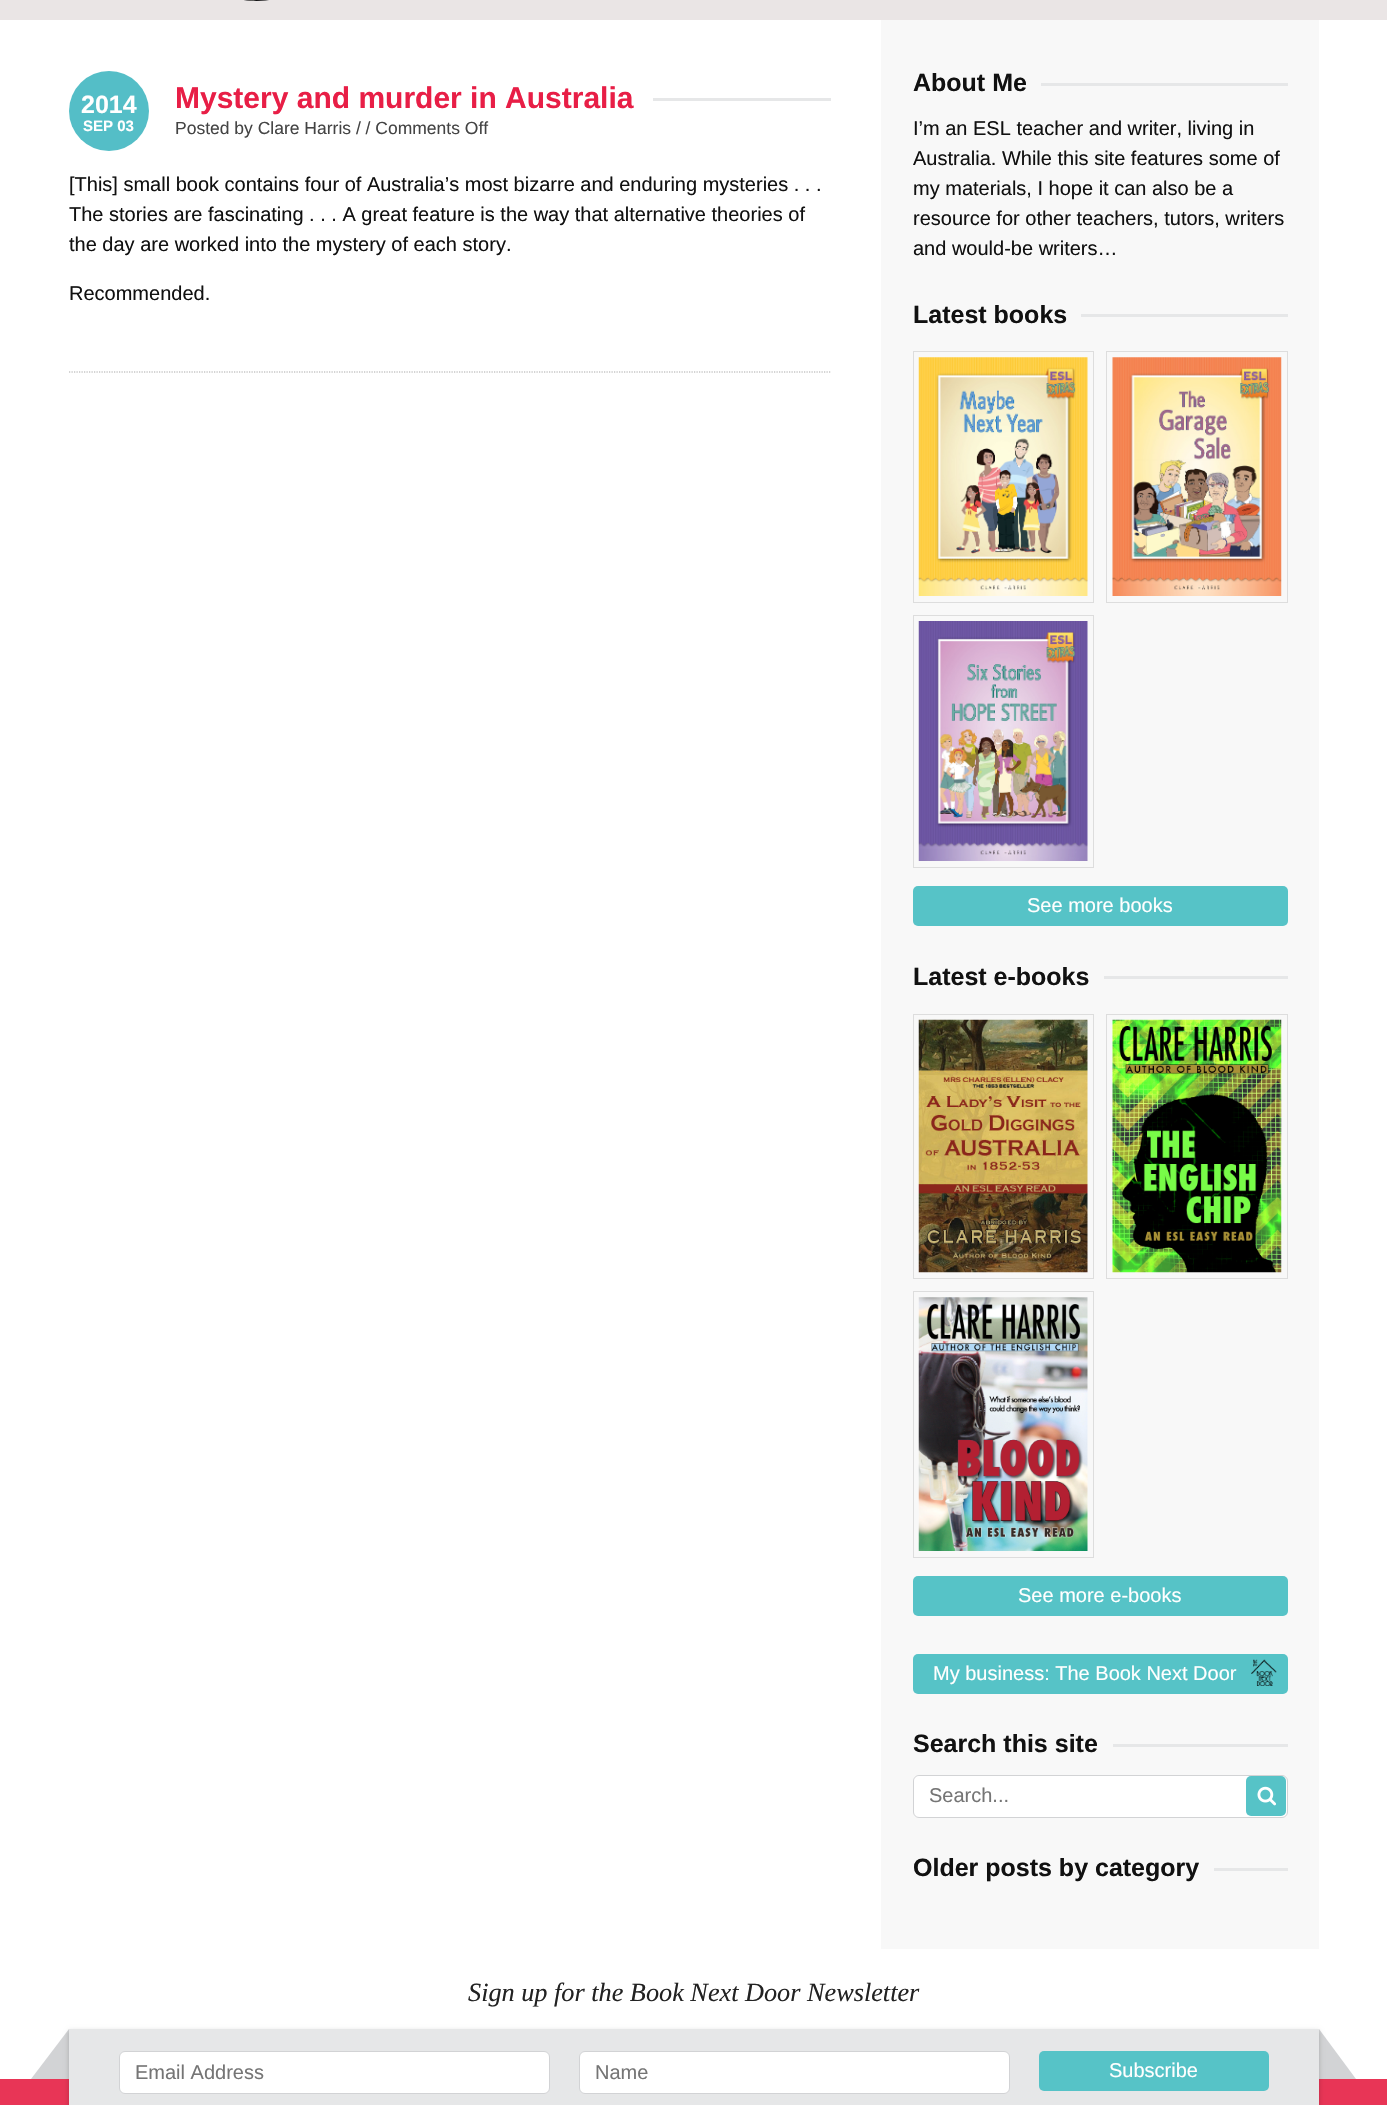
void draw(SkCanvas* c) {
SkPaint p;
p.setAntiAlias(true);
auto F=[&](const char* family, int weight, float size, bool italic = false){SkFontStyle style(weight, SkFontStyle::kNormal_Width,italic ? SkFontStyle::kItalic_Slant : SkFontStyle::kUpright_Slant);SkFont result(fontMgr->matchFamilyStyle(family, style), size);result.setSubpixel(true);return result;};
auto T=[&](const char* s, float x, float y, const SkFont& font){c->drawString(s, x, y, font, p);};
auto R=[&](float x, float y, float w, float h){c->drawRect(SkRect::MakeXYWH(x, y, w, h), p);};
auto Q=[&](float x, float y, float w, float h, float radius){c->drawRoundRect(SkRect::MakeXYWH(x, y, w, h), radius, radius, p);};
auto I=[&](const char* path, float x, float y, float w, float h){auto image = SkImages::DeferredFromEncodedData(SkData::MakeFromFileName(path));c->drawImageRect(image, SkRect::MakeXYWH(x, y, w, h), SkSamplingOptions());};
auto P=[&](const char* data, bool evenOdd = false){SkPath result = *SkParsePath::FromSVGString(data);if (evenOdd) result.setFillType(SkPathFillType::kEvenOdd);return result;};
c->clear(0xffffffff);
p.setColor(0xffeae5e5);
R(0,0,1387,20);
I("1.png",244,0,25,1);
p.setStroke(true);
p.setStrokeWidth(1.2);
p.setColor(0xffaaaaaa);
p.setPathEffect(SkDashPathEffect::Make({{1.25f,1.25f}}, 0));
c->drawPath(P("M69 372h762"),p);
p.setPathEffect(nullptr);
p.setStroke(false);
p.setColor(0xff54bec7);
c->drawCircle(109,111,40,p);
auto f1 = F("Liberation Sans",700,25);
p.setColor(0xffffffff);
T("2014",81,113,f1);
auto f2 = F("Liberation Sans",700,15);
T("SEP 03",83,131,f2);
auto f3 = F("Liberation Sans",700,30);
p.setColor(0xffe81e46);
T("Mystery and murder in Australia",175,108,f3);
p.setColor(0xffe6e7e8);
R(653,98,178,3);
auto f4 = F("Liberation Sans",400,17.5);
p.setColor(0xff444444);
T("Posted by Clare Harris / / Comments Off",175,134,f4);
auto f5 = F("Liberation Sans",400,20);
p.setColor(0xff111111);
T("[This] small book contains four of Australia’s most bizarre and enduring mysteries . . .",69,191,f5);
T("The stories are fascinating . . . A great feature is the way that alternative theories of",69,221,f5);
T("the day are worked into the mystery of each story.",69,251,f5);
T("Recommended.",69,300,f5);
p.setColor(0xfff8f8f8);
R(881,20,438,1929);
p.setColor(0xff111111);
T("About Me",913,91,f1);
p.setColor(0xffe6e7e8);
R(1041,83,247,3);
p.setColor(0xff111111);
T("I’m an ESL teacher and writer, living in",913,135,f5);
T("Australia. While this site features some of",913,165,f5);
T("my materials, I hope it can also be a",913,195,f5);
T("resource for other teachers, tutors, writers",913,225,f5);
T("and would-be writers…",913,255,f5);
T("Latest books",913,323,f1);
p.setColor(0xffe6e7e8);
R(1081,314,207,3);
p.setStroke(true);
p.setStrokeWidth(1);
p.setColor(0xffdddddd);
c->drawRect(SkRect::MakeXYWH(913.5,351.5,180,251),p);
I("2.png",918,357,170,239);
c->drawRect(SkRect::MakeXYWH(1106.5,351.5,181,251),p);
I("3.png",1112,357,170,239);
c->drawRect(SkRect::MakeXYWH(913.5,615.5,180,252),p);
I("4.png",918,621,170,240);
p.setStroke(false);
p.setColor(0xff56c3c7);
Q(913,886,375,40,5);
p.setColor(0xffffffff);
T("See more books",1027,912,f5);
p.setColor(0xff111111);
T("Latest e-books",913,985,f1);
p.setColor(0xffe6e7e8);
R(1104,976,184,3);
p.setStroke(true);
p.setColor(0xffdddddd);
c->drawRect(SkRect::MakeXYWH(913.5,1014.5,180,264),p);
I("5.png",918,1019,170,254);
c->drawRect(SkRect::MakeXYWH(1106.5,1014.5,181,264),p);
I("6.png",1112,1019,170,254);
c->drawRect(SkRect::MakeXYWH(913.5,1291.5,180,266),p);
I("7.png",918,1297,170,254);
p.setStroke(false);
p.setColor(0xff56c3c7);
Q(913,1576,375,40,5);
p.setColor(0xffffffff);
T("See more e-books",1018,1602,f5);
p.setColor(0xff56c3c7);
Q(913,1654,375,40,5);
p.setColor(0xffffffff);
T("My business: The Book Next Door",933,1680,f5);
I("8.png",1251,1659,26,27);
p.setColor(0xff111111);
T("Search this site",913,1752,f1);
p.setColor(0xffe6e7e8);
R(1113,1744,175,3);
p.setColor(0xffffffff);
c->drawRoundRect(SkRect::MakeXYWH(913.5,1775.5,374,42),5.5,5.5,p);
p.setStroke(true);
p.setColor(0xffd2d3d5);
c->drawRoundRect(SkRect::MakeXYWH(913.5,1775.5,374,42),5.5,5.5,p);
p.setStroke(false);
p.setColor(0xffffffff);
Q(914,1776,330,40,6);
p.setColor(0xff757575);
T("Search...",929,1802,f5);
p.setColor(0xff56c3c7);
Q(1246,1776,40,40,5);
I("9.png",1257,1786,19,20);
p.setColor(0xff111111);
T("Older posts by category",913,1876,f1);
p.setColor(0xffe6e7e8);
R(1214,1868,74,3);
auto f6 = F("Liberation Serif",400,26.25,true);
p.setColor(0xff222222);
T("Sign up for the Book Next Door Newsletter",468,2001,f6);
p.setColor(0xffd2d3d5);
c->drawPath(P("M69 2079h-38l38-50z"),p);
c->drawPath(P("M1356 2079h-37v-50z"),p);
p.setColor(0xffe83556);
R(0,2079,1387,26);
p.setColor(0x33000000);
p.setMaskFilter(SkMaskFilter::MakeBlur(kNormal_SkBlurStyle, 2.5));
c->drawRect(SkRect::MakeXYWH(69,2031,1250,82),p);
p.setMaskFilter(nullptr);
p.setColor(0xffe6e7e8);
R(69,2029,1250,76);
p.setColor(0xffffffff);
c->drawRoundRect(SkRect::MakeXYWH(119.5,2051.5,430,42),5.5,5.5,p);
p.setStroke(true);
p.setColor(0xffd2d3d5);
c->drawRoundRect(SkRect::MakeXYWH(119.5,2051.5,430,42),5.5,5.5,p);
p.setStroke(false);
p.setColor(0xff757575);
T("Email Address",135,2079,f5);
p.setColor(0xffffffff);
c->drawRoundRect(SkRect::MakeXYWH(579.5,2051.5,430,42),5.5,5.5,p);
p.setStroke(true);
p.setColor(0xffd2d3d5);
c->drawRoundRect(SkRect::MakeXYWH(579.5,2051.5,430,42),5.5,5.5,p);
p.setStroke(false);
p.setColor(0xff757575);
T("Name",595,2079,f5);
p.setColor(0xff56c3c7);
Q(1039,2051,230,40,5);
p.setColor(0xffffffff);
T("Subscribe",1109,2077,f5);
}
